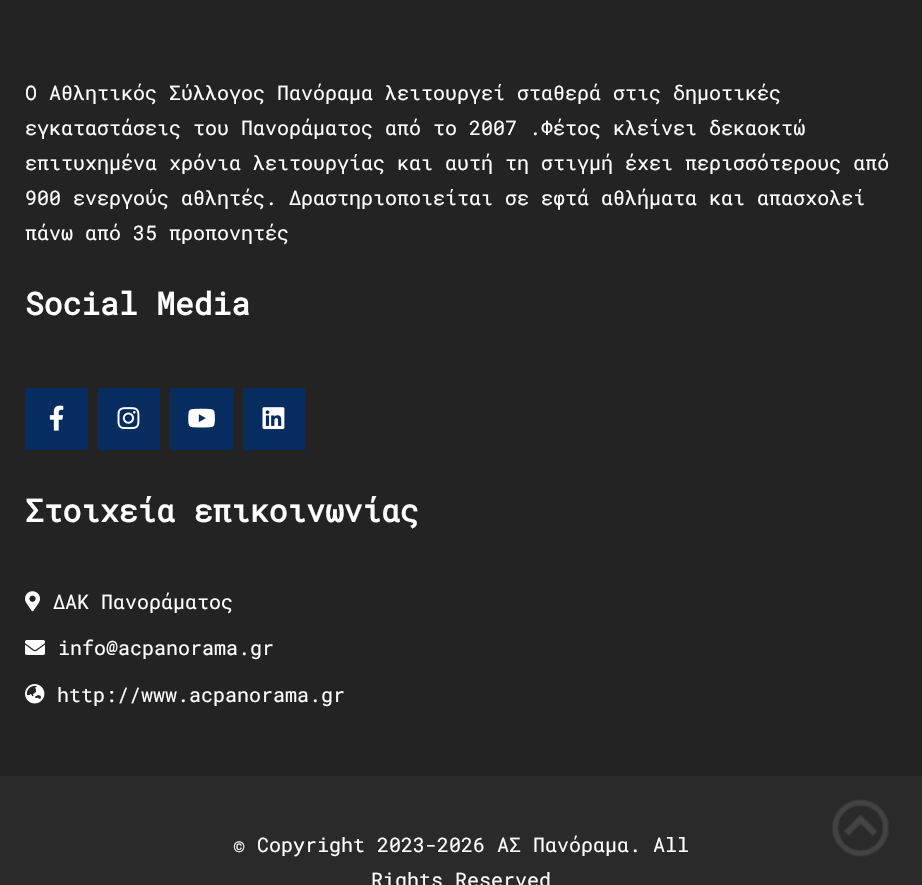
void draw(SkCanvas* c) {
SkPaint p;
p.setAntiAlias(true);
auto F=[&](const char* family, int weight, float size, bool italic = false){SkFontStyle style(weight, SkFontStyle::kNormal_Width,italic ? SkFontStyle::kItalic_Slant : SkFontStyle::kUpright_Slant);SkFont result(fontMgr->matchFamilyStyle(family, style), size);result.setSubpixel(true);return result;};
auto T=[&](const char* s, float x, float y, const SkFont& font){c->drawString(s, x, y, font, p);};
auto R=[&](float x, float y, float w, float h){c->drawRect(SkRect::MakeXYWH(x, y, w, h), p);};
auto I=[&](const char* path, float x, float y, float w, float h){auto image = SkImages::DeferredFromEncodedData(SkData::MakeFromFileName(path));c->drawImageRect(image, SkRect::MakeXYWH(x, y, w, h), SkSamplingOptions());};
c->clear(0xff232323);
auto f1 = F("Roboto Mono",400,20);
p.setColor(0xffffffff);
T("Ο Αθλητικός Σύλλογος Πανόραμα λειτουργεί σταθερά στις δημοτικές",25,100,f1);
T("εγκαταστάσεις του Πανοράματος από το 2007 .Φέτος κλείνει δεκαοκτώ",25,135,f1);
T("επιτυχημένα χρόνια λειτουργίας και αυτή τη στιγμή έχει περισσότερους από",25,170,f1);
T("900 ενεργούς αθλητές. Δραστηριοποιείται σε εφτά αθλήματα και απασχολεί",25,205,f1);
T("πάνω από 35 προπονητές",25,240,f1);
auto f2 = F("Roboto Mono",700,31.25);
T("Social Media",25,315,f2);
p.setColor(0xff062c60);
R(25,388,63,62);
I("1.png",49,405,15,26);
R(98,388,62,62);
I("2.png",117,407,23,23);
R(170,388,63,62);
I("3.png",188,408,27,20);
R(243,388,62,62);
I("4.png",262,407,23,23);
p.setColor(0xffffffff);
T("Στοιχεία επικοινωνίας",25,522,f2);
I("5.png",25,591,15,21);
T("ΔΑΚ Πανοράματος",53,609,f1);
I("6.png",25,640,20,15);
T("info@acpanorama.gr",58,655,f1);
I("7.png",25,684,20,20);
T("http://www.acpanorama.gr",57,702,f1);
p.setColor(0xff2a2a2a);
R(0,776,922,109);
p.setColor(0xffffffff);
T("© Copyright 2023-2026 ΑΣ Πανόραμα. All",233,852,f1);
T("Rights Reserved",371,887,f1);
I("8.png",832,799,57,58);
}
